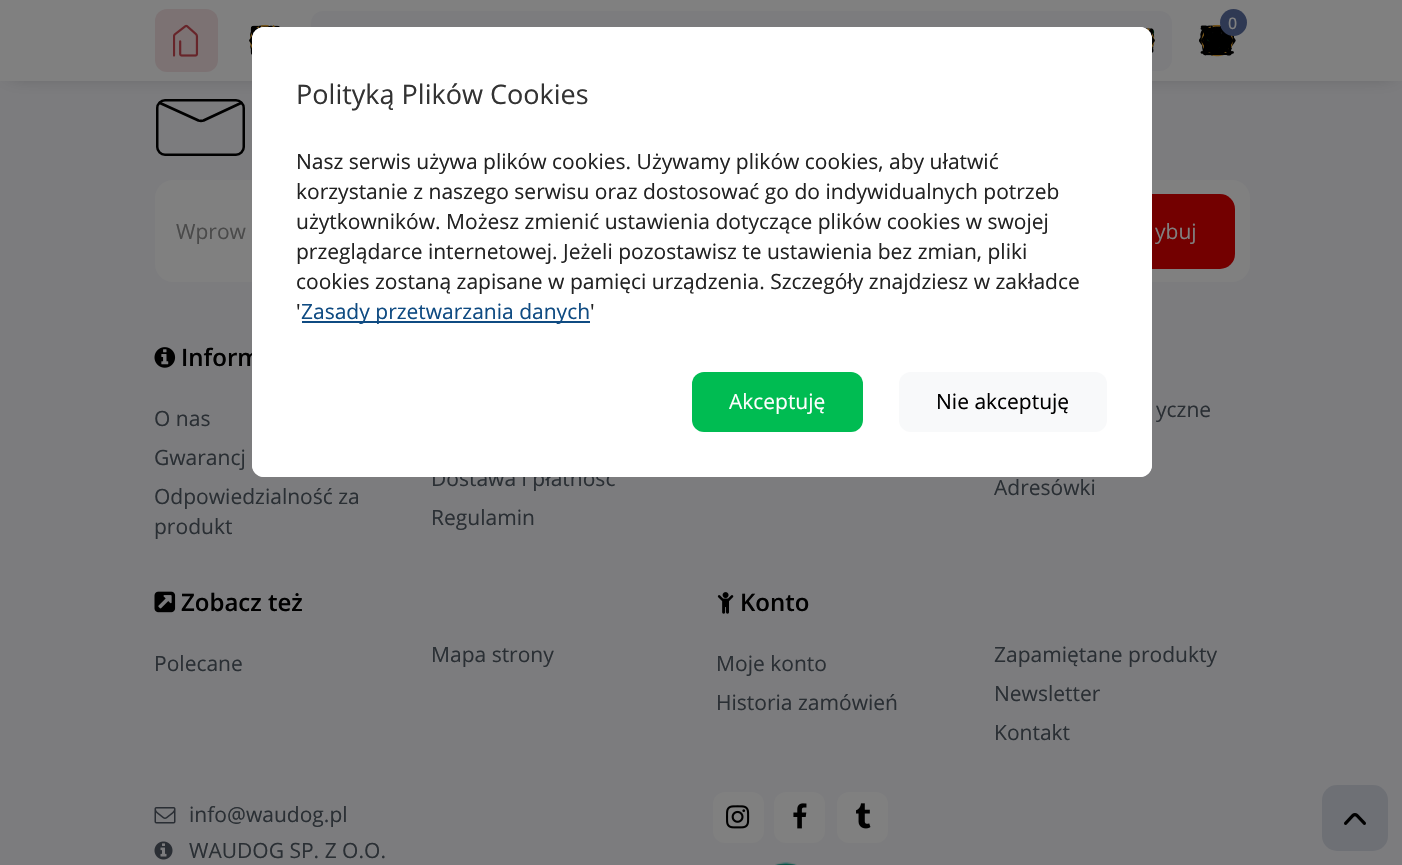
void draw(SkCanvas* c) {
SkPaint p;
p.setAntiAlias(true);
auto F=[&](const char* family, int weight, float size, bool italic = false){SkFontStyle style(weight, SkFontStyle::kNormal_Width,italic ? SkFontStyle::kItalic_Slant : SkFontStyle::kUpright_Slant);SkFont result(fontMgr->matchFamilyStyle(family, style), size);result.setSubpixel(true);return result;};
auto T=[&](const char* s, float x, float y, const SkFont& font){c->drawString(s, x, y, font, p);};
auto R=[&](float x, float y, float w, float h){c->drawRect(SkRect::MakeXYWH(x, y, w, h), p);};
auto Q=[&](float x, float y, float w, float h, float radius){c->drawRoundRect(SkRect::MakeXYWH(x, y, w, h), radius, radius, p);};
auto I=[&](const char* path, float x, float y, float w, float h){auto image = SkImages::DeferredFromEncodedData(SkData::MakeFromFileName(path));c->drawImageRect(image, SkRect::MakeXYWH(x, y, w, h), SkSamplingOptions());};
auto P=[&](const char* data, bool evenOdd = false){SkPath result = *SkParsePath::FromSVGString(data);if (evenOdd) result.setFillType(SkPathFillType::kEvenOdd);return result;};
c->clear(0xff7c7c7e);
p.setStroke(true);
p.setStrokeWidth(2.5);
p.setColor(0xff000000);
c->drawRoundRect(SkRect::MakeXYWH(157.25,100.25,86.5,54.5),7.75,7.75,p);
p.setStrokeWidth(2.7);
p.setStrokeCap(SkPaint::kRound_Cap);
p.setStrokeJoin(SkPaint::kRound_Join);
c->drawPath(P("M160 103l38.5 17.5c1.5 .5 3.5 .5 5 0l37.5-17.5"),p);
p.setStroke(false);
p.setColor(0x66000000);
p.setMaskFilter(SkMaskFilter::MakeBlur(kNormal_SkBlurStyle, 11));
c->drawRect(SkRect::MakeXYWH(11,11,1381,60),p);
p.setMaskFilter(nullptr);
p.setColor(0xff808080);
R(0,0,1402,81);
p.setColor(0xff7c7273);
Q(155,9,63,63,12);
I("1.png",173,24,26,33);
I("2.png",249,24,31,31);
p.setColor(0xff7c7c7e);
c->drawPath(P("M323 11h796v60h-796c-6.5 0-12-5.5-12-12v-36c0-6.5 5.5-12 12-12z"),p);
c->drawPath(P("M1119 11h41c6.5 0 12 5.5 12 12v36c0 6.5-5.5 12-12 12h-41z"),p);
I("3.png",1140,27,15,26);
I("4.png",1199,24,37,33);
p.setColor(0xff2f3953);
c->drawCircle(1233.5,22.5,13.5,p);
auto f1 = F("Open Sans",500,16);
p.setColor(0xff808080);
T("0",1228,29,f1);
c->drawPath(P("M173 180h879v102h-879c-10 0-18-8-18-18v-66c0-10 8-18 18-18z"),p);
c->drawPath(P("M1052 180h180c10 0 18 8 18 18v66c0 10-8 18-18 18h-180z"),p);
p.setColor(0xff730000);
Q(1050,194,185,75,15);
auto f2 = F("Open Sans",600,24);
p.setColor(0xff000000);
T("Inform",181,366,f2);
auto f3 = F("Open Sans",400,21);
p.setColor(0xff2a2f34);
T("Dostawa i płatność",431,486,f3);
p.setColor(0xffffffff);
Q(252,27,900,450,12);
c->drawPath(P("M264 27h876c6.5 0 12 5.5 12 12v93h-900v-93c0-6.5 5.5-12 12-12z"),p);
auto f4 = F("Open Sans",400,27);
p.setColor(0xff333333);
T("Polityką Plików Cookies",296,104,f4);
p.setColor(0xff222222);
T("Nasz serwis używa plików cookies. Używamy plików cookies, aby ułatwić",296,169,f3);
T("korzystanie z naszego serwisu oraz dostosować go do indywidualnych potrzeb",296,199,f3);
T("użytkowników. Możesz zmienić ustawienia dotyczące plików cookies w swojej",296,229,f3);
T("przeglądarce internetowej. Jeżeli pozostawisz te ustawienia bez zmian, pliki",296,259,f3);
T("cookies zostaną zapisane w pamięci urządzenia. Szczegóły znajdziesz w zakładce",296,289,f3);
T("'",296,319,f3);
p.setColor(0xff0f4b82);
R(302,321,288,2);
T("Zasady przetwarzania danych",301,319,f3);
p.setColor(0xff222222);
T("'",590,319,f3);
p.setColor(0xffffffff);
c->drawPath(P("M252 357h900v108c0 6.5-5.5 12-12 12h-876c-6.5 0-12-5.5-12-12z"),p);
p.setColor(0xff00bc52);
Q(692,372,171,60,12);
p.setColor(0xffffffff);
T("Akceptuję",729,409,f3);
p.setColor(0xfff8f9fa);
Q(899,372,208,60,12);
p.setColor(0xff000000);
T("Nie akceptuję",936,409,f3);
p.setColor(0xff4a4a4a);
T("Wprow",176,239,f3);
p.setColor(0xff808080);
T("ybuj",1155,239,f3);
I("5.png",154,347,22,21);
p.setColor(0xff2a2f34);
T("O nas",154,426,f3);
T("Gwarancj",154,465,f3);
T("Odpowiedzialność za",154,504,f3);
T("produkt",154,534,f3);
T("Regulamin",431,525,f3);
T("yczne",1156,417,f3);
T("Adresówki",994,495,f3);
I("6.png",154,591,22,22);
p.setColor(0xff000000);
T("Zobacz też",181,611,f2);
p.setColor(0xff2a2f34);
T("Polecane",154,671,f3);
T("Mapa strony",431,662,f3);
I("7.png",717,592,17,22);
p.setColor(0xff000000);
T("Konto",740,611,f2);
p.setColor(0xff2a2f34);
T("Moje konto",716,671,f3);
T("Zapamiętane produkty",994,662,f3);
T("Historia zamówień",716,710,f3);
T("Newsletter",994,701,f3);
T("Kontakt",994,740,f3);
I("8.png",154,807,22,17);
T("info@waudog.pl",189,822,f3);
I("9.png",154,841,19,19);
T("WAUDOG SP. Z O.O.",189,858,f3);
p.setColor(0xff808080);
Q(713,792,51,51,12);
I("10.png",726,805,24,24);
Q(774,792,51,51,12);
I("11.png",793,803,14,26);
Q(837,792,51,51,12);
I("12.png",856,803,15,26);
I("13.png",775,862,22,3);
p.setColor(0xff6e7075);
Q(1322,785,66,66,15);
I("14.png",1344,813,22,12);
}
